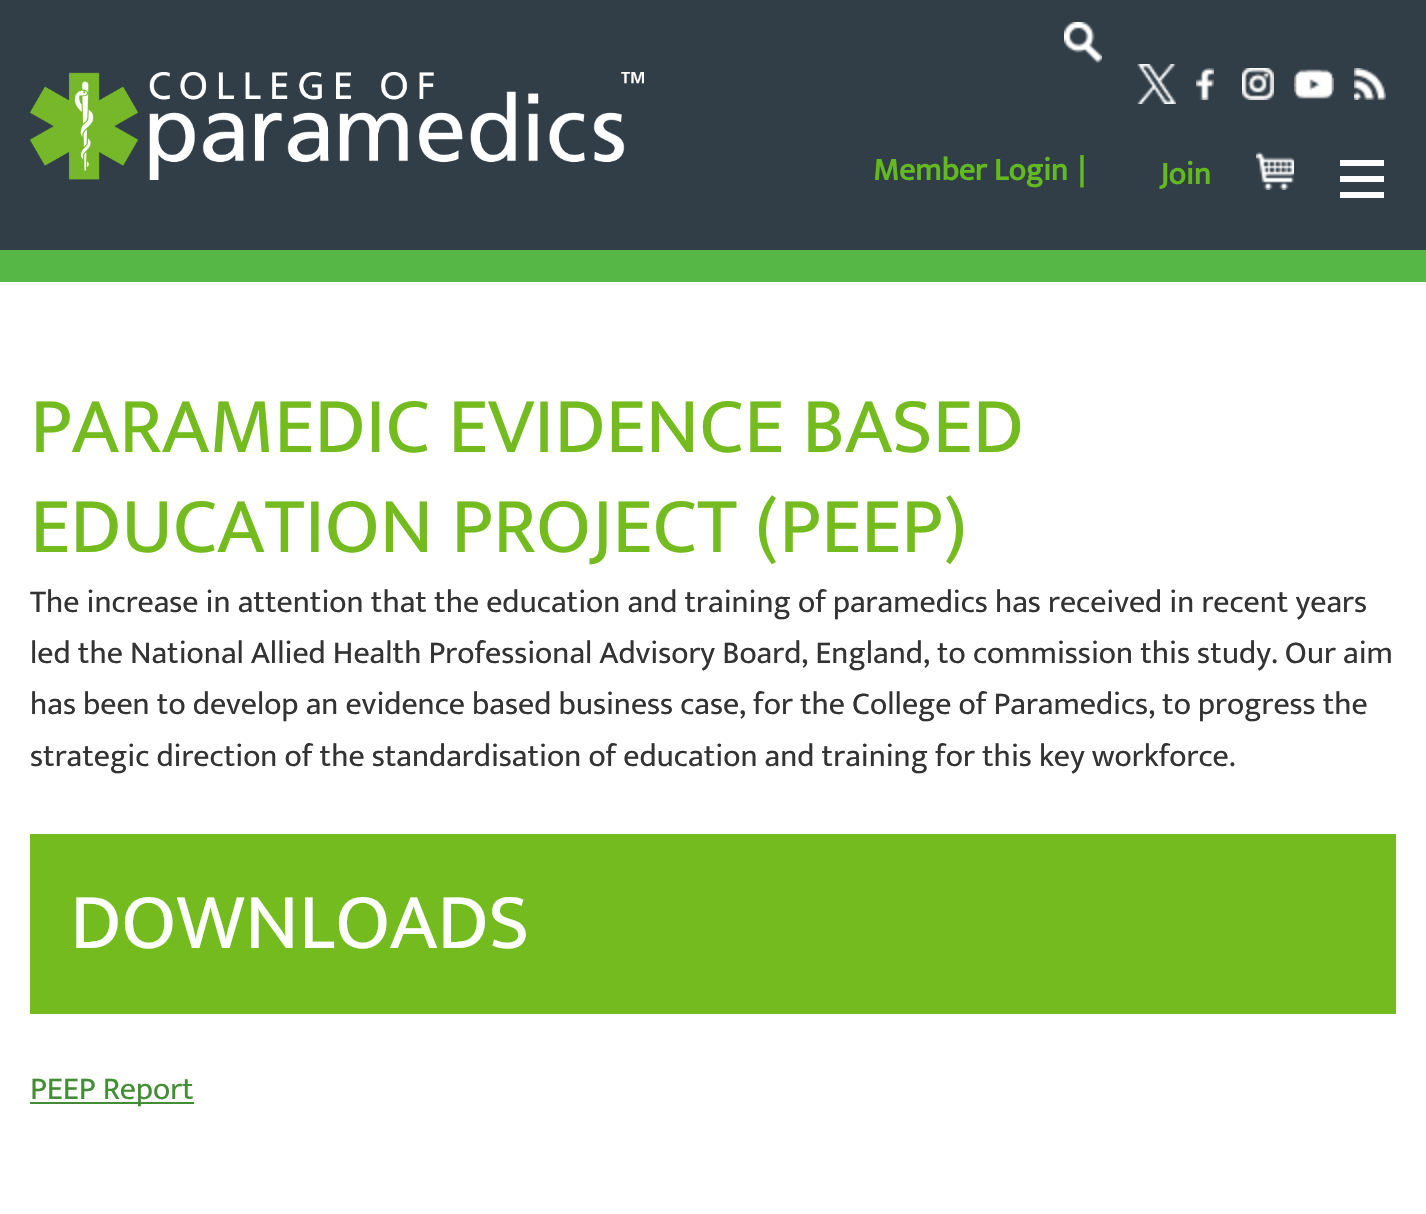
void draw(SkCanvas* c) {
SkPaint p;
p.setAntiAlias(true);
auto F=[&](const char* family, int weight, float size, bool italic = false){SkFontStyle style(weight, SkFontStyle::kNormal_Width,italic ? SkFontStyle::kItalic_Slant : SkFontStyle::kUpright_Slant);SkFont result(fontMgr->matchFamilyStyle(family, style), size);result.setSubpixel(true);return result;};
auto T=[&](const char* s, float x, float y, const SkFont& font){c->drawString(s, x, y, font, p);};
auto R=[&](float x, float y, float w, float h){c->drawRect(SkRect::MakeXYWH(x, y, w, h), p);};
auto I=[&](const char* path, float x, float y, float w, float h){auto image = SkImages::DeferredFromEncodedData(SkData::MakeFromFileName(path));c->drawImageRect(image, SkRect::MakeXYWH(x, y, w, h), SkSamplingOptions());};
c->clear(0xffffffff);
p.setColor(0xff313e48);
R(0,0,1426,250);
I("1.png",1064,22,38,41);
I("2.png",30,72,614,108);
I("3.png",1137,64,39,40);
I("4.png",1196,68,18,32);
I("5.png",1242,68,32,32);
I("6.png",1294,69,40,30);
I("7.png",1354,68,32,32);
auto f1 = F("Mukta Vaani",700,32);
p.setColor(0xff62b920);
T("Member Login",873,180,f1);
T("|",1078,180,f1);
T("Join",1160,184,f1);
I("8.png",1256,152,38,38);
p.setColor(0xffffffff);
R(1340,160,44,6);
R(1340,176,44,6);
R(1340,192,44,6);
p.setColor(0xff57b746);
R(0,250,1426,32);
auto f2 = F("Mukta Vaani",400,80);
p.setColor(0xff74bb20);
T("PARAMEDIC EVIDENCE BASED",30,452,f2);
T("EDUCATION PROJECT (PEEP)",30,552,f2);
auto f3 = F("Mukta Vaani",400,32);
p.setColor(0xff333333);
T("The increase in attention that the education and training of paramedics has received in recent years",30,612,f3);
T("led the National Allied Health Professional Advisory Board, England, to commission this study. Our aim",30,663,f3);
T("has been to develop an evidence based business case, for the College of Paramedics, to progress the",30,714,f3);
T("strategic direction of the standardisation of education and training for this key workforce.",30,766,f3);
p.setColor(0xff74bb20);
R(30,834,1366,180);
p.setColor(0xffffffff);
T("DOWNLOADS",70,948,f2);
p.setColor(0xff438d36);
R(30,1102,164,2);
T("PEEP Report",30,1099,f3);
}
